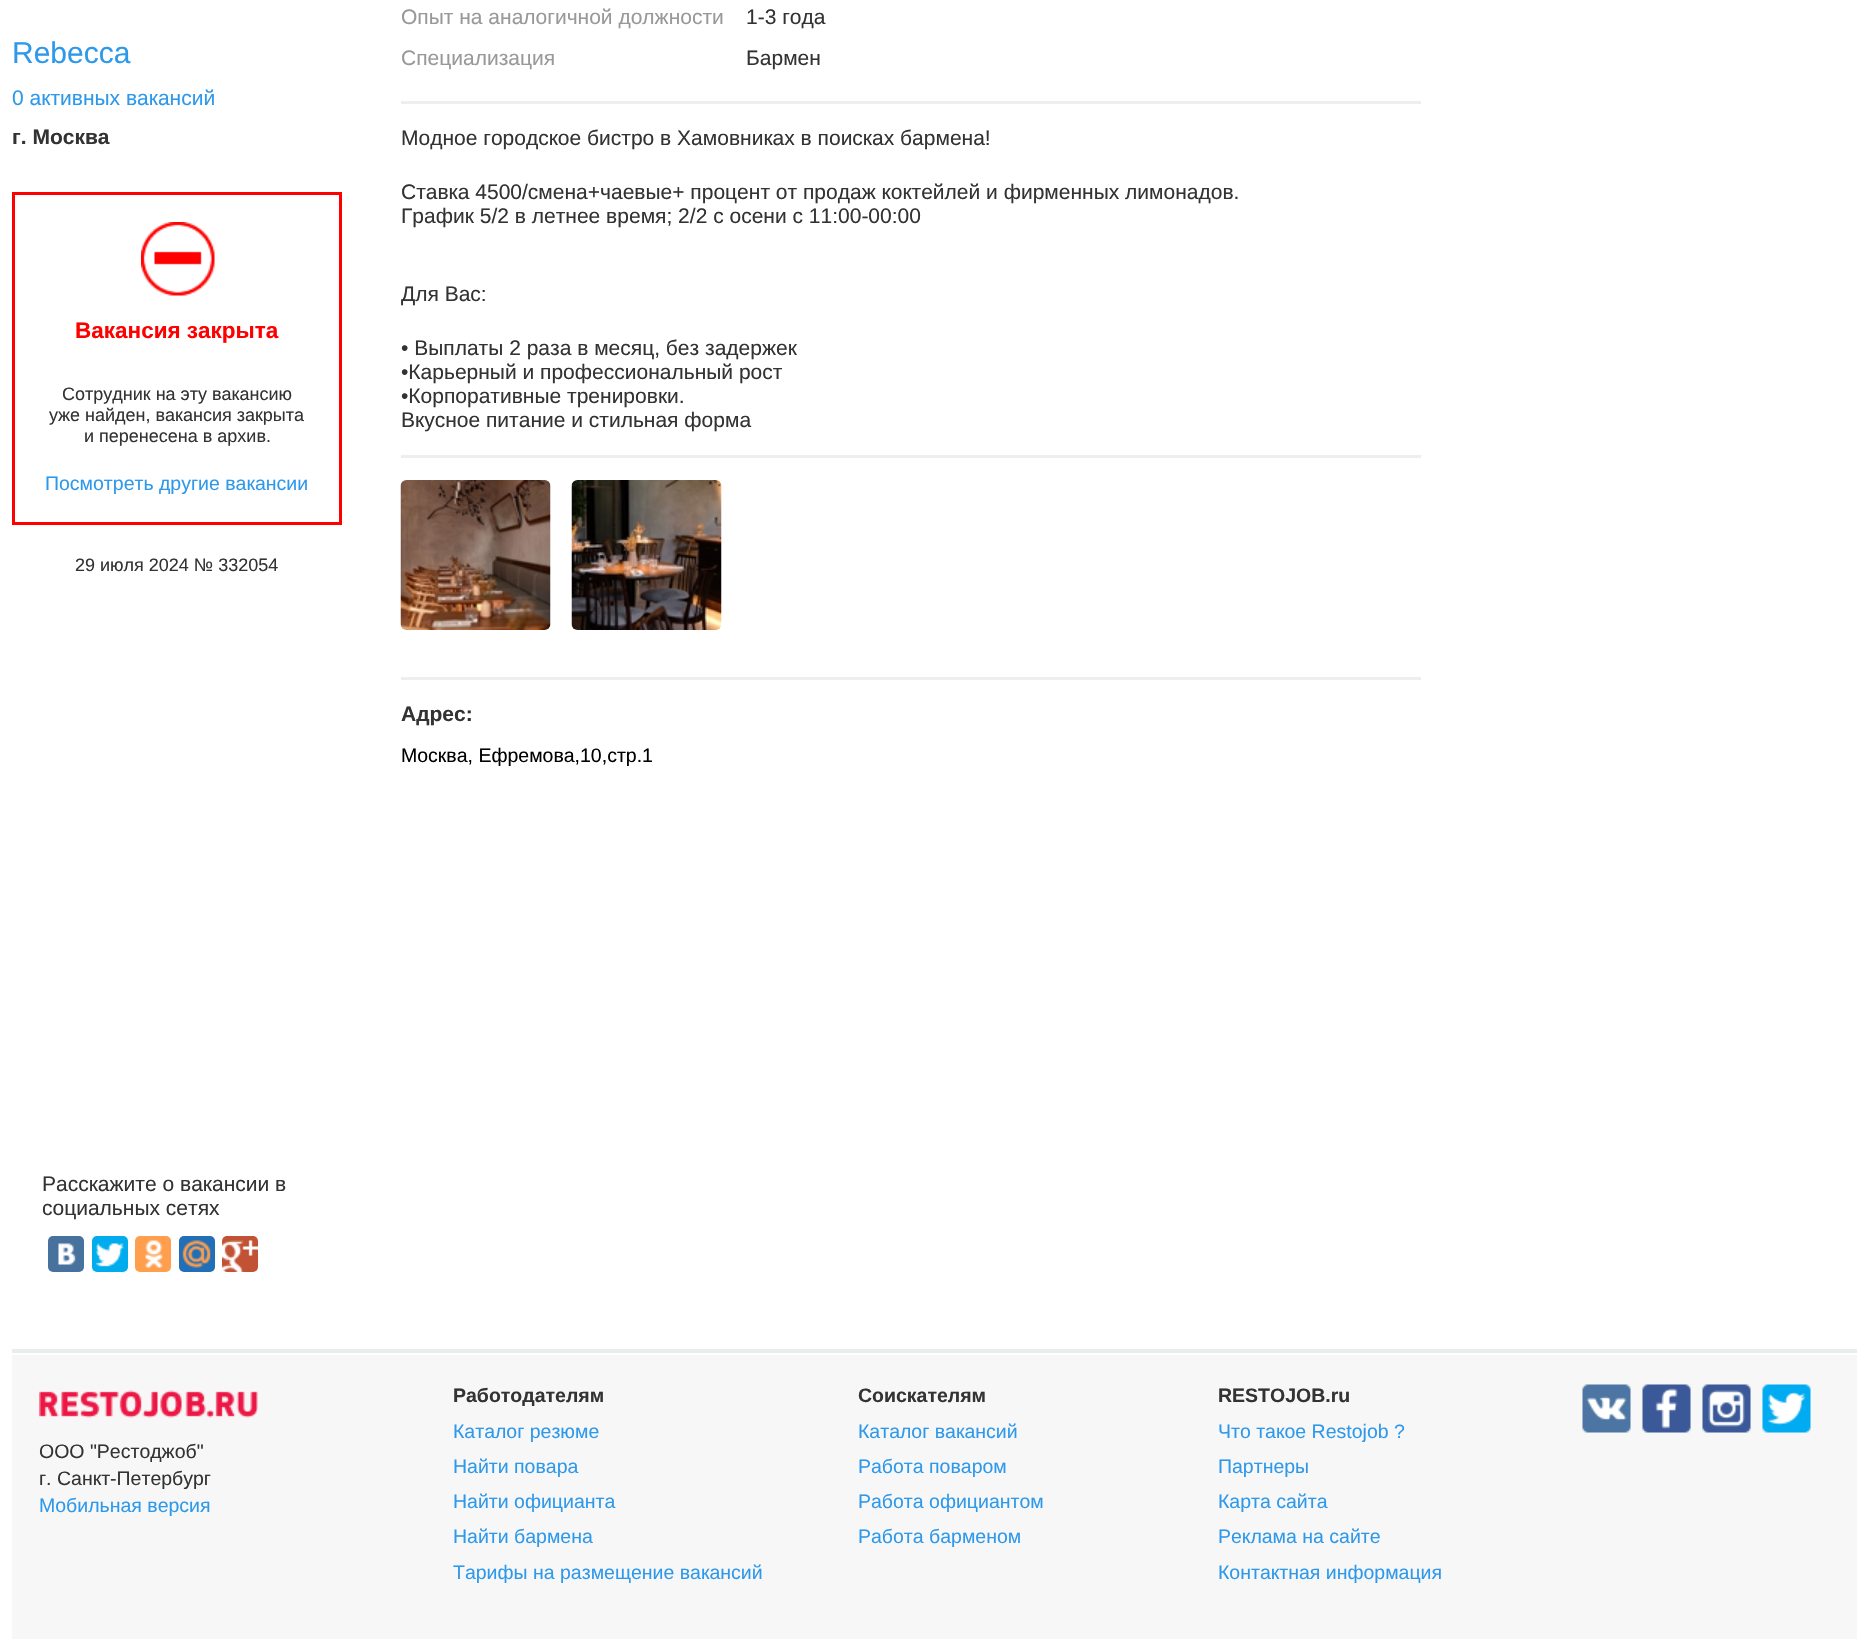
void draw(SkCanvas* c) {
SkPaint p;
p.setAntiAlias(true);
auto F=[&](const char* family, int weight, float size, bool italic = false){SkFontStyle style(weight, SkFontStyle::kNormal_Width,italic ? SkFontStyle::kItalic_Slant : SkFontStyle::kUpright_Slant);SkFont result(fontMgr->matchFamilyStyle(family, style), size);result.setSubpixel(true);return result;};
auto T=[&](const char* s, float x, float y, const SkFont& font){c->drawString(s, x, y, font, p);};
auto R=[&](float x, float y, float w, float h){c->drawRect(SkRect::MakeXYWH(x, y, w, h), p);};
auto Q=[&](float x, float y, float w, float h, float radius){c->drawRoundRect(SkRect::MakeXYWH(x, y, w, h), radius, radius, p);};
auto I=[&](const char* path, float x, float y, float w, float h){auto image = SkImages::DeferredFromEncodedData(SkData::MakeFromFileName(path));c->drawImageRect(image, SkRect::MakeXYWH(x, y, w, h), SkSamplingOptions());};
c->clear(0xffffffff);
auto f1 = F("Liberation Sans",400,30);
p.setColor(0xff2e99eb);
T("Rebecca",12,63,f1);
auto f2 = F("Liberation Sans",400,21);
T("0 активных вакансий",12,105,f2);
auto f3 = F("Liberation Sans",700,21);
p.setColor(0xff333333);
T("г. Москва",12,144,f3);
I("1.png",141,222,74,74);
p.setStroke(true);
p.setStrokeWidth(3);
p.setColor(0xffff0000);
c->drawRect(SkRect::MakeXYWH(13.5,193.5,327,330),p);
auto f4 = F("Liberation Sans",700,22.5);
p.setStroke(false);
T("Вакансия закрыта",75,338,f4);
auto f5 = F("Liberation Sans",400,18);
p.setColor(0xff333333);
T("Сотрудник на эту вакансию",62,400,f5);
T("уже найден, вакансия закрыта",49,421,f5);
T("и перенесена в архив.",84,442,f5);
auto f6 = F("Liberation Sans",400,19.5);
p.setColor(0xff2e99eb);
T("Посмотреть другие вакансии",45,490,f6);
p.setColor(0xff333333);
T("29 июля 2024 № 332054",75,571,f5);
p.setColor(0xffeeeeee);
R(401,101,1020,3);
p.setColor(0xff999999);
T("Опыт на аналогичной должности",401,24,f2);
p.setColor(0xff333333);
T("1-3 года",746,24,f2);
p.setColor(0xff999999);
T("Специализация",401,65,f2);
p.setColor(0xff333333);
T("Бармен",746,65,f2);
p.setColor(0xffeeeeee);
R(401,455,1020,3);
p.setColor(0xff333333);
T("Модное городское бистро в Хамовниках в поисках бармена!",401,145,f2);
T("Ставка 4500/смена+чаевые+ процент от продаж коктейлей и фирменных лимонадов.",401,199,f2);
T("График 5/2 в летнее время; 2/2 с осени с 11:00-00:00",401,223,f2);
T("Для Вас:",401,301,f2);
T("• Выплаты 2 раза в месяц, без задержек",401,355,f2);
T("•Карьерный и профессиональный рост",401,379,f2);
T("•Корпоративные тренировки.",401,403,f2);
T("Вкусное питание и стильная форма",401,427,f2);
p.setColor(0xffeeeeee);
R(401,677,1020,3);
I("2.png",400,480,151,150);
I("3.png",571,480,151,150);
p.setColor(0xff333333);
T("Адрес:",401,721,f3);
p.setColor(0xff000000);
T("Москва, Ефремова,10,стр.1",401,762,f6);
p.setColor(0xff333333);
T("Расскажите о вакансии в",42,1191,f2);
T("социальных сетях",42,1215,f2);
p.setColor(0xff48729e);
Q(48,1236,36,36,5);
I("4.png",58,1243,18,22);
p.setColor(0xff00aced);
Q(92,1236,36,36,5);
I("5.png",95,1243,29,24);
p.setColor(0xffff9f4d);
Q(135,1236,36,36,5);
I("6.png",145,1240,18,28);
p.setColor(0xff226eb7);
Q(179,1236,36,36,5);
I("7.png",182,1240,29,28);
p.setColor(0xffc25234);
Q(222,1236,36,36,5);
I("8.png",222,1240,36,32);
p.setColor(0xffe9edee);
R(12,1349,1845,4);
p.setColor(0xfff7f7f7);
R(12,1355,1845,284);
I("9.png",39,1390,219,28);
p.setColor(0xff333333);
T("ООО \"Рестоджоб\"",39,1458,f6);
T("г. Санкт-Петербург",39,1485,f6);
p.setColor(0xff2e99eb);
T("Мобильная версия",39,1512,f6);
auto f7 = F("Liberation Sans",700,19.5);
p.setColor(0xff333333);
T("Работодателям",453,1402,f7);
p.setColor(0xff2e99eb);
T("Каталог резюме",453,1438,f6);
T("Найти повара",453,1473,f6);
T("Найти официанта",453,1508,f6);
T("Найти бармена",453,1543,f6);
T("Тарифы на размещение вакансий",453,1579,f6);
p.setColor(0xff333333);
T("Соискателям",858,1402,f7);
p.setColor(0xff2e99eb);
T("Каталог вакансий",858,1438,f6);
T("Работа поваром",858,1473,f6);
T("Работа официантом",858,1508,f6);
T("Работа барменом",858,1543,f6);
p.setColor(0xff333333);
T("RESTOJOB.ru",1218,1402,f7);
p.setColor(0xff2e99eb);
T("Что такое Restojob ?",1218,1438,f6);
T("Партнеры",1218,1473,f6);
T("Карта сайта",1218,1508,f6);
T("Реклама на сайте",1218,1543,f6);
T("Контактная информация",1218,1579,f6);
I("10.png",1582,1384,49,49);
I("11.png",1642,1384,49,49);
I("12.png",1702,1384,49,49);
I("13.png",1762,1384,49,49);
}
